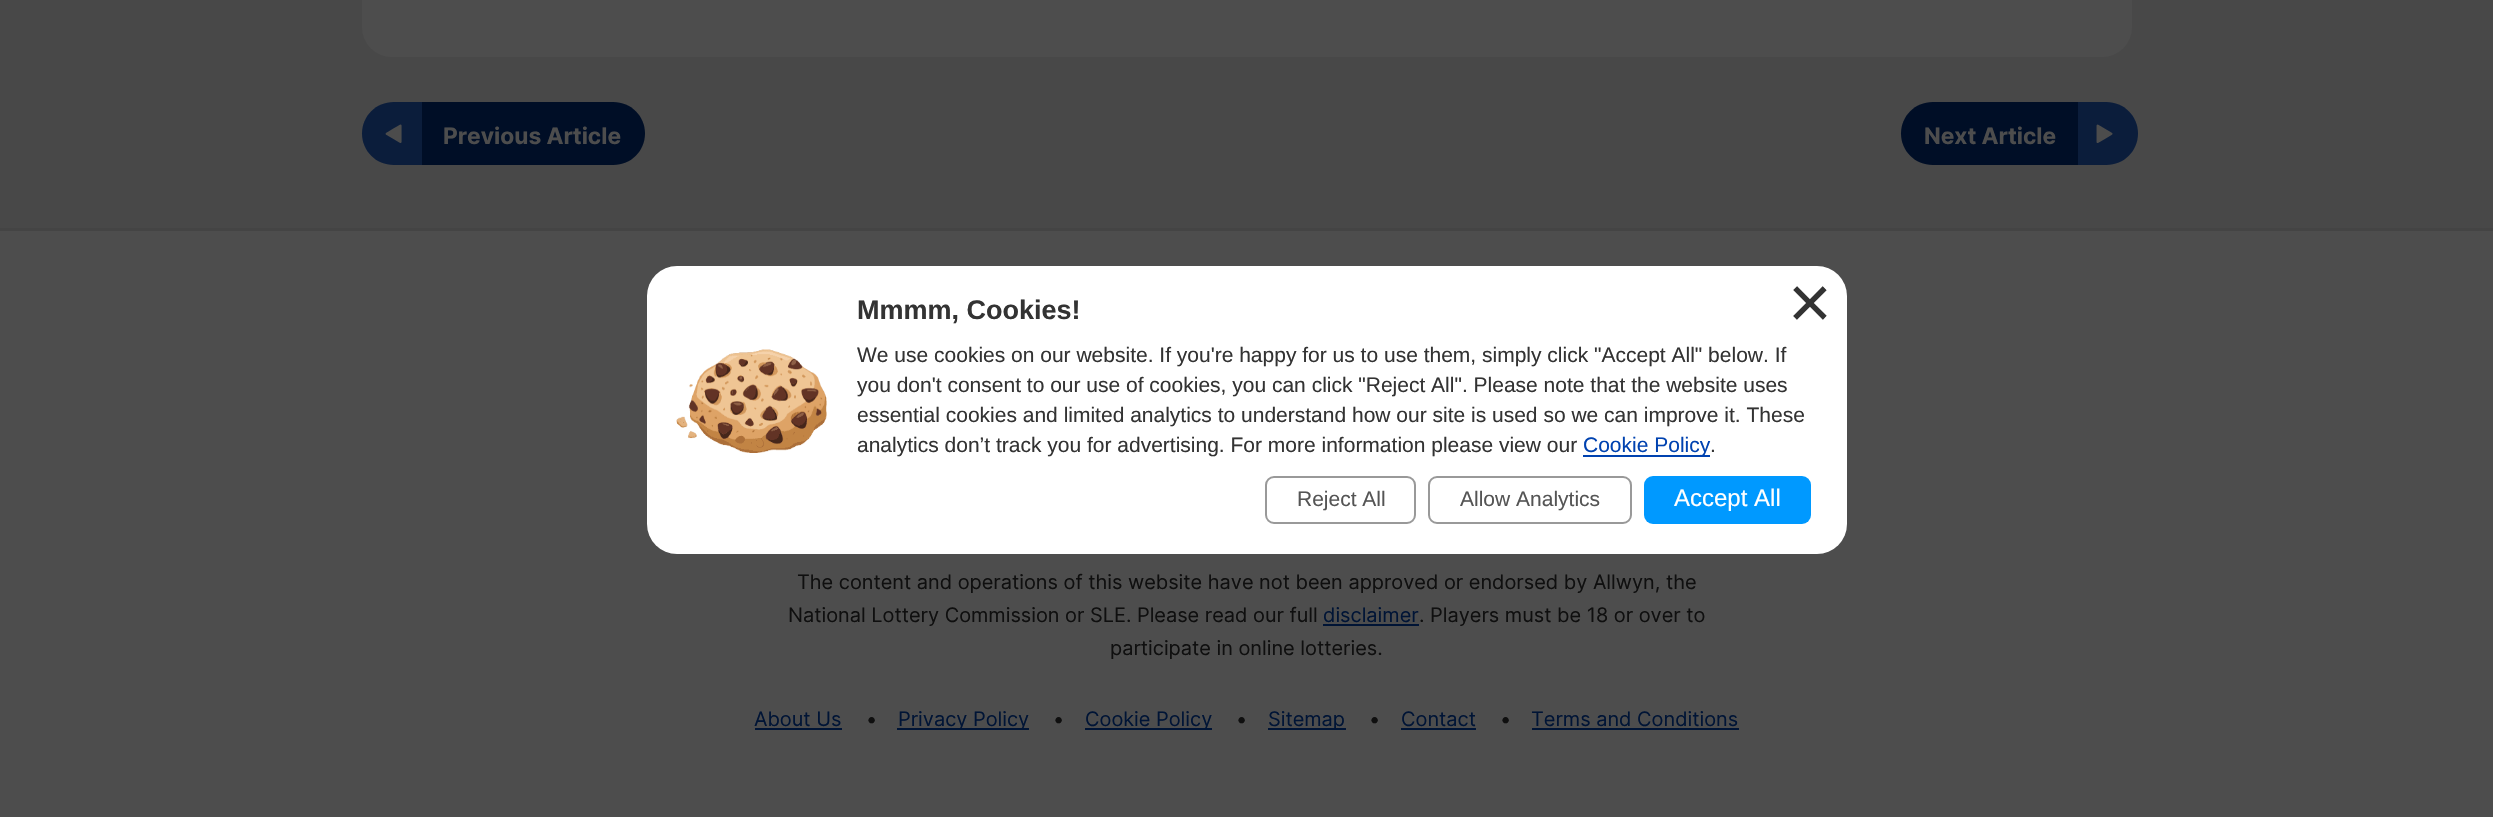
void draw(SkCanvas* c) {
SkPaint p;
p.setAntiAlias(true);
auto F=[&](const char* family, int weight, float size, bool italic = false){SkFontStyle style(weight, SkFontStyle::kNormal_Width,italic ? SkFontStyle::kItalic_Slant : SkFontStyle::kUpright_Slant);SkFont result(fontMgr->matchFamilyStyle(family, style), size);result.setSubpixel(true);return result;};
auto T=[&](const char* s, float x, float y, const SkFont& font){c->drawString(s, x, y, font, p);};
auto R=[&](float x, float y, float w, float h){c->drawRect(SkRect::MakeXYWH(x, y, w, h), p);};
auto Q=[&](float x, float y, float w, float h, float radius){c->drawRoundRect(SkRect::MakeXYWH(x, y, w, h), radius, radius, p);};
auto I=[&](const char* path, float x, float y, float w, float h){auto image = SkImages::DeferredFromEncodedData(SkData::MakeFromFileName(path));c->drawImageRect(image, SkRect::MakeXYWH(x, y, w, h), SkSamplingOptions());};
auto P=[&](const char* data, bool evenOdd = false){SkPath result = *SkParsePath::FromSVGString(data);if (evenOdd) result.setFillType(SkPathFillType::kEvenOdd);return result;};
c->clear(0xff484848);
p.setColor(0xff4d4d4d);
Q(362,-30,1770,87,30);
p.setColor(0xff0b1d3b);
c->drawPath(P("M393.5 102h28.5v63h-28.5c-17.5 0-31.5-14-31.5-31.5c0-17.5 14-31.5 31.5-31.5z"),p);
p.setColor(0xff000e26);
c->drawPath(P("M422 102h191.5c17.5 0 31.5 14 31.5 31.5c0 17.5-14 31.5-31.5 31.5h-191.5z"),p);
I("1.png",385,124,17,19);
auto f1 = F("inter",700,24);
p.setColor(0xff4d4d4d);
T("Previous Article",443,144,f1);
p.setColor(0xff0b1d3b);
c->drawPath(P("M2078 102h28.5c17.5 0 31.5 14 31.5 31.5c0 17.5-14 31.5-31.5 31.5h-28.5z"),p);
p.setColor(0xff000e26);
c->drawPath(P("M1932.5 102h145.5v63h-145.5c-17.5 0-31.5-14-31.5-31.5c0-17.5 14-31.5 31.5-31.5z"),p);
I("2.png",2096,124,17,19);
p.setColor(0xff4d4d4d);
T("Next Article",1924,144,f1);
R(0,231,2493,586);
p.setColor(0xffffffff);
Q(647,266,1200,288,30);
I("3.png",676,349,151,104);
auto f2 = F("Liberation Sans",700,27);
p.setColor(0xff333333);
T("Mmmm, Cookies!",857,319,f2);
auto f3 = F("Liberation Sans",400,21);
T("We use cookies on our website. If you're happy for us to use them, simply click \"Accept All\" below. If",857,362,f3);
T("you don't consent to our use of cookies, you can click \"Reject All\". Please note that the website uses",857,392,f3);
T("essential cookies and limited analytics to understand how our site is used so we can improve it. These",857,422,f3);
T("analytics don’t track you for advertising. For more information please view our",857,452,f3);
p.setColor(0xff0042b0);
R(1583,455,127,2);
T("Cookie Policy",1583,452,f3);
p.setColor(0xff333333);
T(".",1710,452,f3);
p.setStroke(true);
p.setStrokeWidth(2);
p.setColor(0xff999999);
c->drawRoundRect(SkRect::MakeXYWH(1266,477,149,46),8,8,p);
p.setStroke(false);
p.setColor(0xff555555);
T("Reject All",1297,506,f3);
p.setStroke(true);
p.setColor(0xff999999);
c->drawRoundRect(SkRect::MakeXYWH(1429,477,202,46),8,8,p);
p.setStroke(false);
p.setColor(0xff555555);
T("Allow Analytics",1460,506,f3);
p.setColor(0xff0099ff);
Q(1644,476,167,48,9);
auto f4 = F("Liberation Sans",400,24);
p.setColor(0xffffffff);
T("Accept All",1674,506,f4);
auto f5 = F("Liberation Sans",400,75);
p.setColor(0xff333333);
T("×",1788,328,f5);
p.setColor(0xff444444);
R(0,228,2493,3);
auto f6 = F("inter",400,21);
p.setColor(0xff0f0f0f);
T("The content and operations of this website have not been approved or endorsed by Allwyn, the",797,589,f6);
T("National Lottery Commission or SLE. Please read our full",788,622,f6);
p.setColor(0xff001435);
T("disclaimer",1323,622,f6);
R(1323,624,96,2);
p.setColor(0xff0f0f0f);
T(". Players must be 18 or over to",1419,622,f6);
T("participate in online lotteries.",1110,655,f6);
p.setColor(0xff001435);
T("About Us",754,726,f6);
R(755,728,87,2);
p.setColor(0xff0f0f0f);
T("•",866,726,f6);
p.setColor(0xff001435);
R(897,728,132,2);
T("Privacy Policy",898,726,f6);
p.setColor(0xff0f0f0f);
T("•",1053,726,f6);
p.setColor(0xff001435);
R(1085,728,127,2);
T("Cookie Policy",1085,726,f6);
p.setColor(0xff0f0f0f);
T("•",1236,726,f6);
p.setColor(0xff001435);
R(1268,728,78,2);
T("Sitemap",1268,726,f6);
p.setColor(0xff0f0f0f);
T("•",1369,726,f6);
p.setColor(0xff001435);
T("Contact",1401,726,f6);
R(1401,728,75,2);
p.setColor(0xff0f0f0f);
T("•",1500,726,f6);
p.setColor(0xff001435);
T("Terms and Conditions",1531,726,f6);
R(1532,728,207,2);
}
